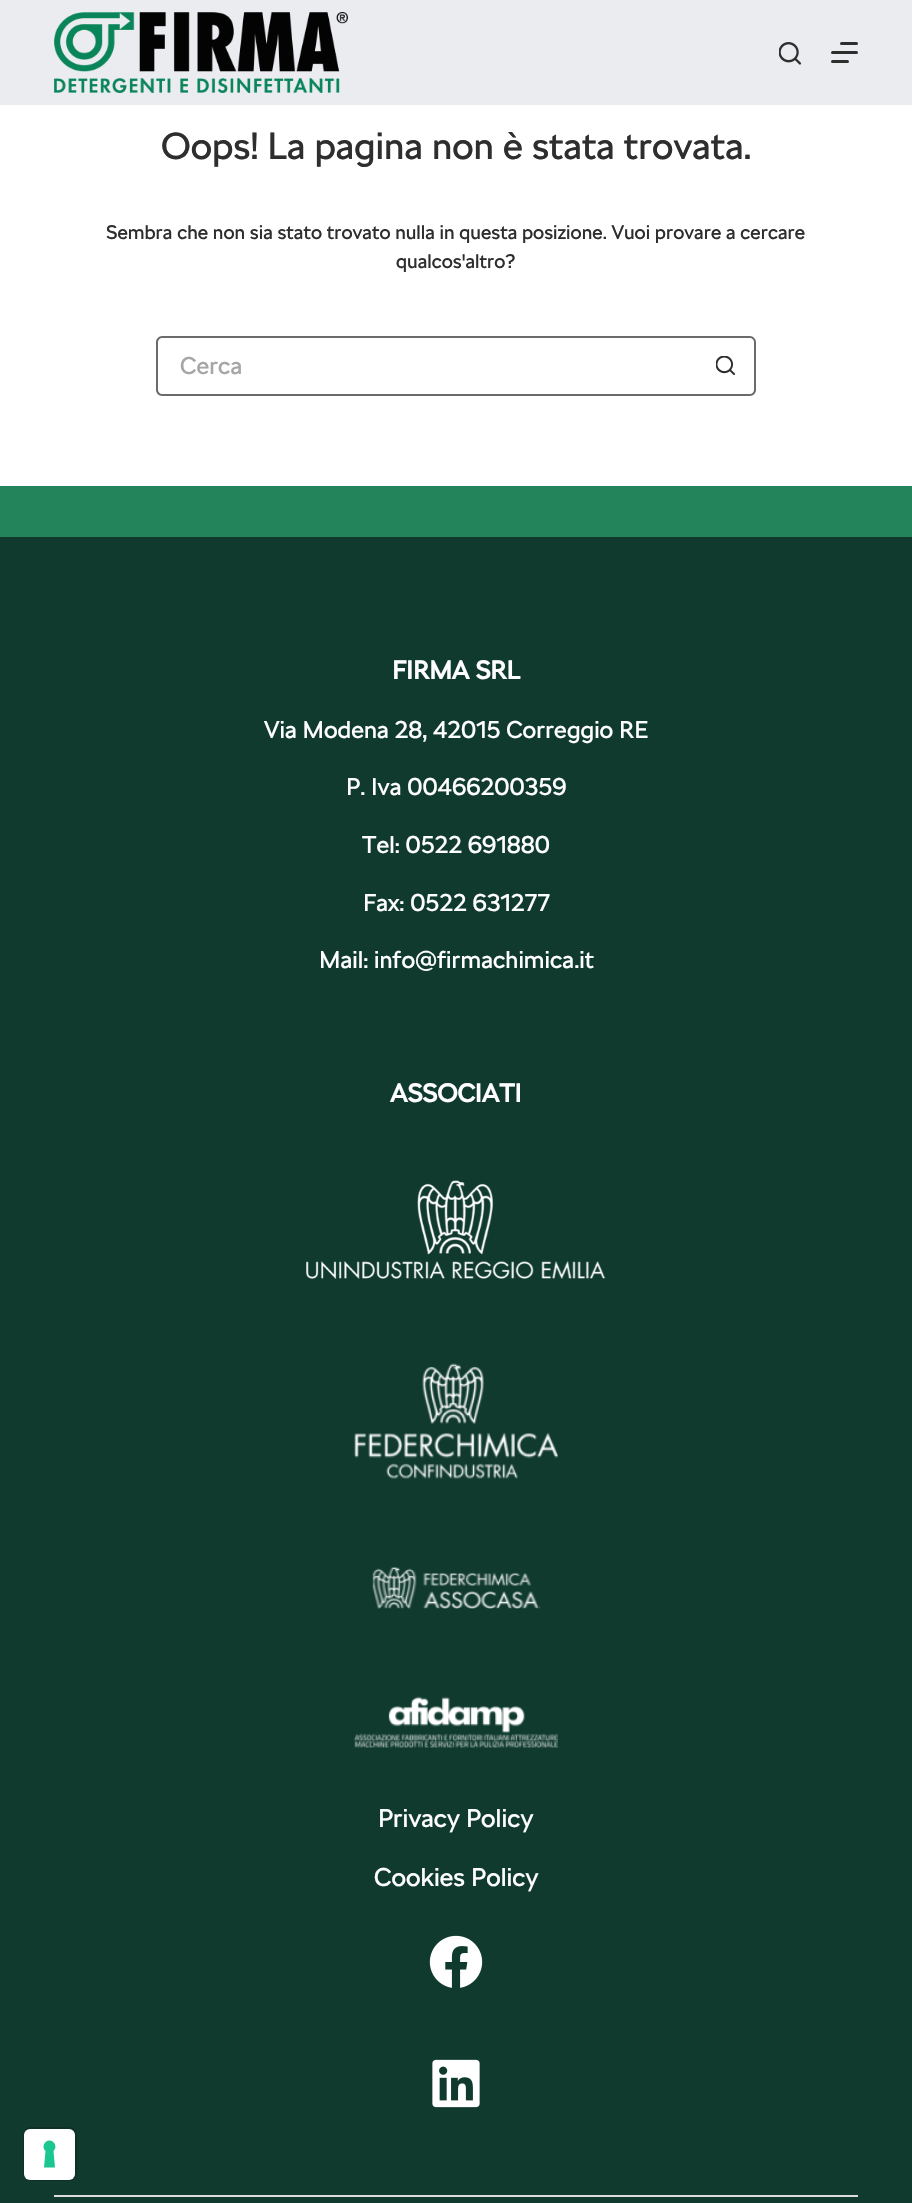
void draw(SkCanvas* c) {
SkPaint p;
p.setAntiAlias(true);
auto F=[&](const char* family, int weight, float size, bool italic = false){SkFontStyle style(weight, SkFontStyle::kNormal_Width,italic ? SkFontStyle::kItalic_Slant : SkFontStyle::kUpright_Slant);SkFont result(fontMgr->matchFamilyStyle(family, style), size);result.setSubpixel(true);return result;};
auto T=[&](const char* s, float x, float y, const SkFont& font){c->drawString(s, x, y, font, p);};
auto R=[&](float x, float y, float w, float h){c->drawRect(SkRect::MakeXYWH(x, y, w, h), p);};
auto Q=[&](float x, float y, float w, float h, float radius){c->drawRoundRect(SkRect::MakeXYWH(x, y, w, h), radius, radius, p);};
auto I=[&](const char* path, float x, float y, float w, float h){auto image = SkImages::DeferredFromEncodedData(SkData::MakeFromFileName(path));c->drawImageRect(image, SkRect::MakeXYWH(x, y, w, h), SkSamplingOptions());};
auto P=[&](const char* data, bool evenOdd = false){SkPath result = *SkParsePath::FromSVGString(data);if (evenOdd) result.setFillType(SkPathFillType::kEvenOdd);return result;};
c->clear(0xffffffff);
p.setColor(0xffeaecf0);
R(0,0,912,105);
I("1.png",54,12,294,81);
I("2.png",779,42,22,23);
p.setColor(0xff2e2e2e);
Q(840,42,18,3,1.5);
Q(831,51,27,3,1.5);
Q(831,60,18,3,1.5);
auto f1 = F("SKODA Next",400,37.5);
T("Oops! La pagina non è stata trovata.",161,159,f1);
auto f2 = F("SKODA Next",400,19.5);
T("Sembra che non sia stato trovato nulla in questa posizione. Vuoi provare a cercare",106,239,f2);
T("qualcos'altro?",396,268,f2);
p.setColor(0xff6b6b6b);
c->drawPath(P("M162 336h534v60h-534c-3 0-6-3-6-6v-48c0-3 3-6 6-6zm0 2h534v56h-534c-2 0-4-2-4-4v-48c0-2 2-4 4-4z",true),p);
auto f3 = F("SKODA Next",400,24);
p.setColor(0xffa6a6a6);
T("Cerca",180,374,f3);
p.setColor(0xff6b6b6b);
c->drawPath(P("M696 336h54c3 0 6 3 6 6v48c0 3-3 6-6 6h-54zm0 2h54c2 0 4 2 4 4v48c0 2-2 4-4 4h-54z",true),p);
I("3.png",716,356,19,19);
p.setColor(0xff23835b);
R(0,486,912,51);
p.setColor(0xff103a2e);
R(0,537,912,1666);
auto f4 = F("SKODA Next",700,25.5);
p.setColor(0xffffffff);
T("FIRMA SRL",392,679,f4);
T("Via Modena 28, 42015 Correggio RE",264,738,f3);
T("P. Iva 00466200359",346,795,f3);
T("Tel: 0522 691880",362,853,f3);
T("Fax: 0522 631277",363,911,f3);
T("Mail: info@firmachimica.it",319,968,f3);
T("ASSOCIATI",390,1102,f4);
I("4.png",306,1180,300,99);
I("5.png",354,1363,204,116);
I("6.png",372,1567,169,42);
I("7.png",354,1696,204,52);
auto f5 = F("SKODA Next",400,25.5);
T("Privacy Policy",378,1827,f5);
T("Cookies Policy",374,1886,f5);
I("8.png",429,1935,54,53);
I("9.png",432,2059,48,49);
p.setColor(0xffdddddd);
R(54,2195,804,2);
p.setStroke(true);
p.setStrokeWidth(2);
p.setColor(0xff0e3127);
c->drawRoundRect(SkRect::MakeXYWH(24,2128,52,52),7,7,p);
p.setStroke(false);
p.setColor(0xffffffff);
Q(24,2129,51,51,6);
p.setColor(0xff1cc691);
c->drawPath(P("M49.5 2140.5c5.5 0 8 7 4 10.5l1.5 16.5h-11l1.5-16.5c-4-3.5-1.5-10.5 4-10.5z",true),p);
}
